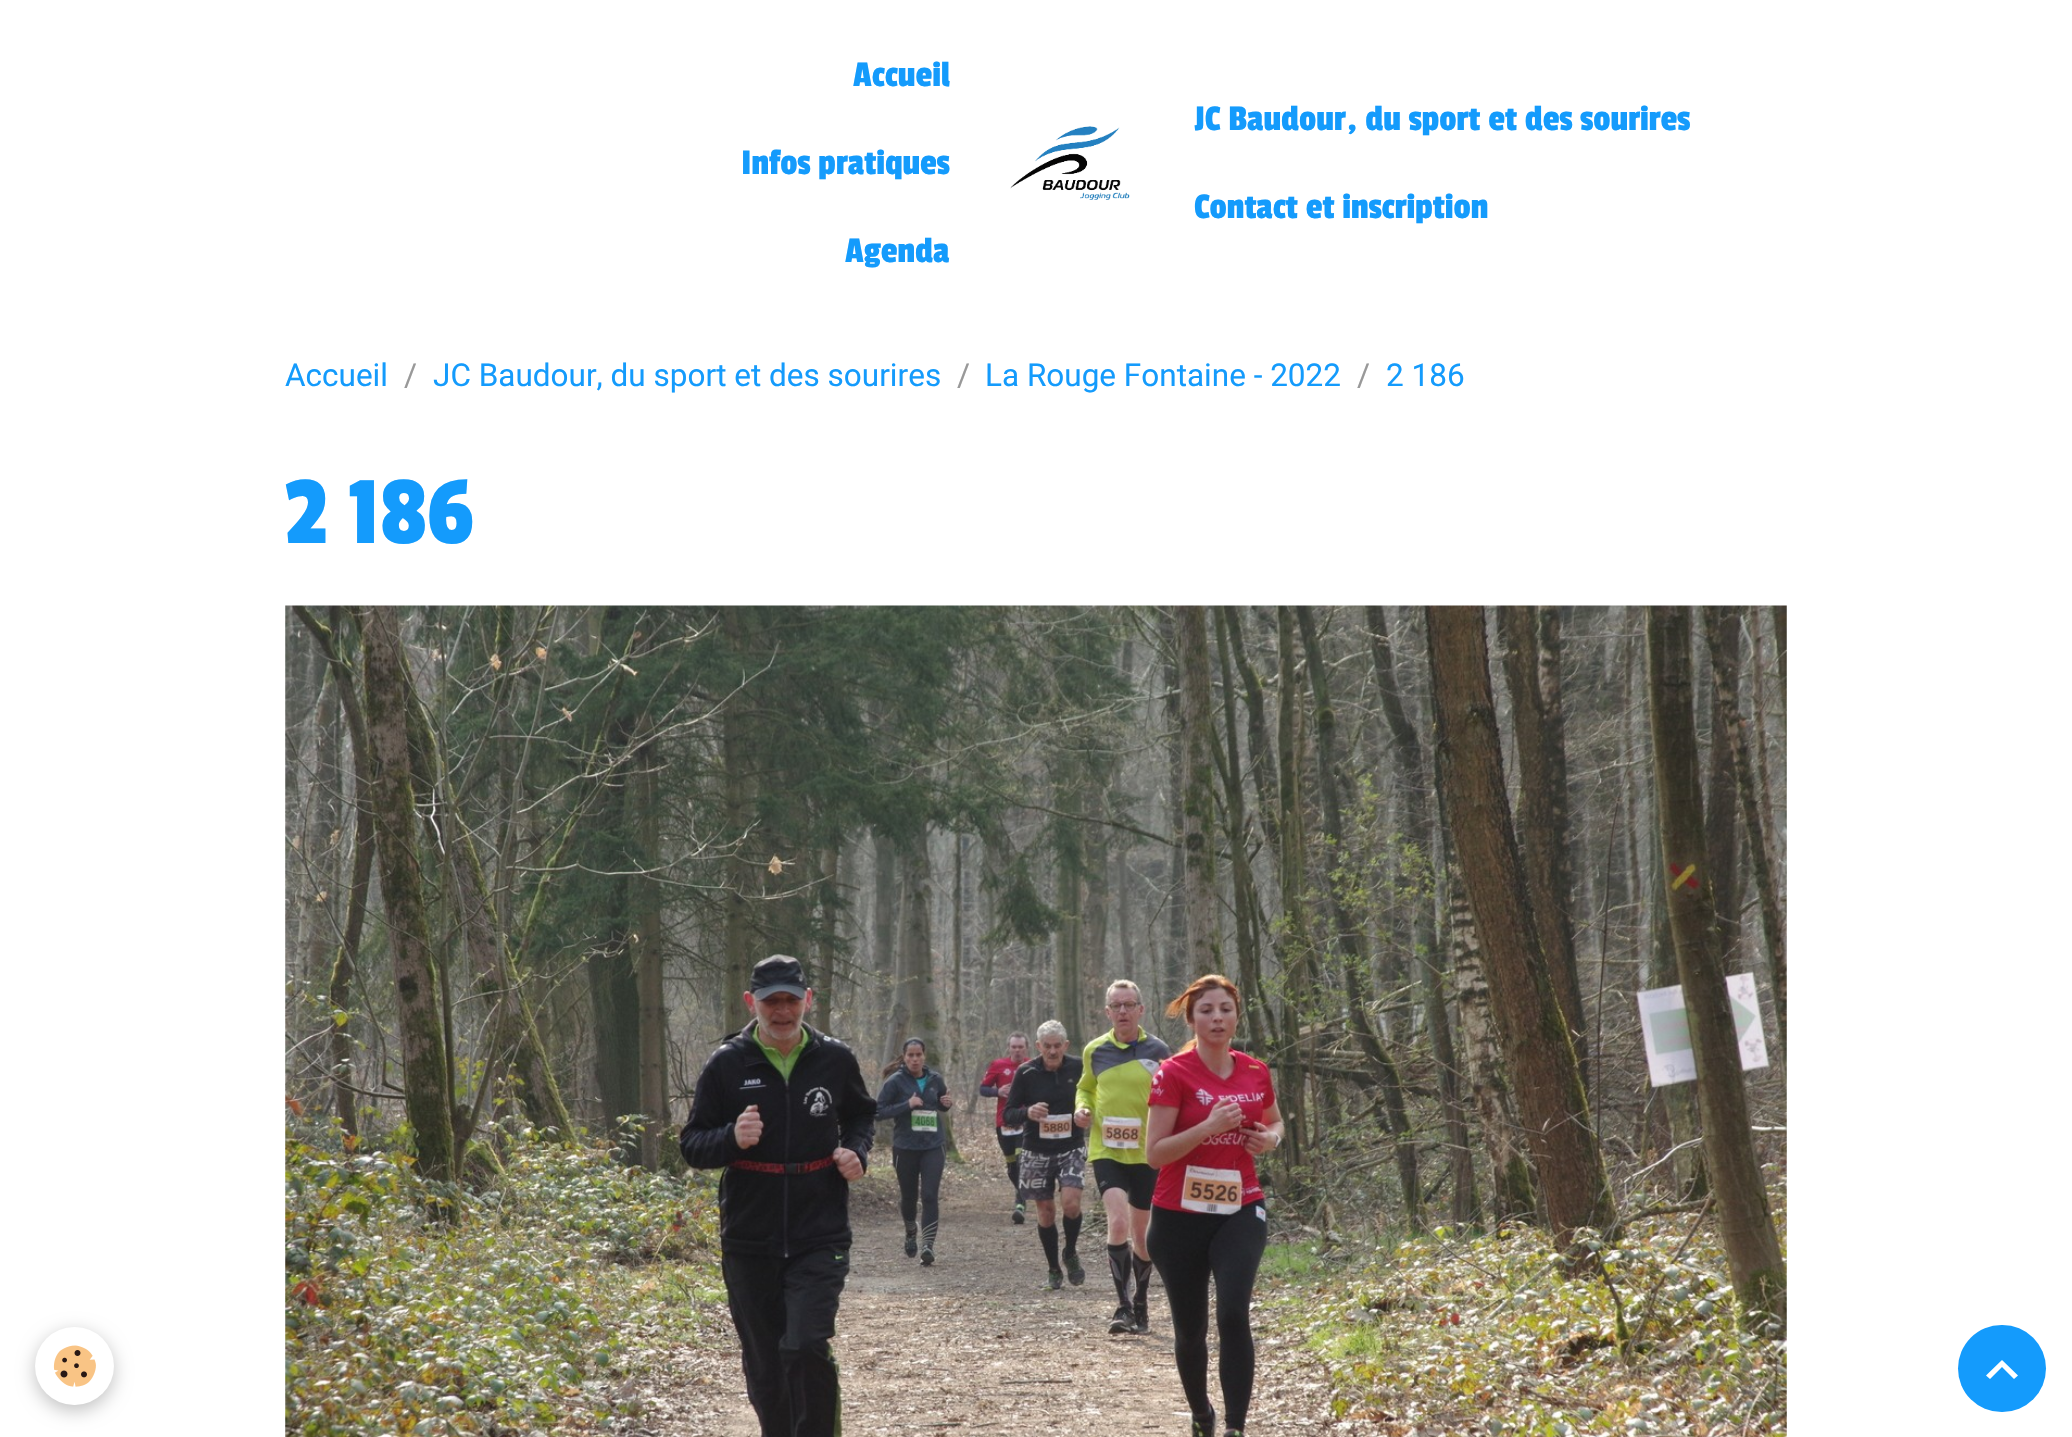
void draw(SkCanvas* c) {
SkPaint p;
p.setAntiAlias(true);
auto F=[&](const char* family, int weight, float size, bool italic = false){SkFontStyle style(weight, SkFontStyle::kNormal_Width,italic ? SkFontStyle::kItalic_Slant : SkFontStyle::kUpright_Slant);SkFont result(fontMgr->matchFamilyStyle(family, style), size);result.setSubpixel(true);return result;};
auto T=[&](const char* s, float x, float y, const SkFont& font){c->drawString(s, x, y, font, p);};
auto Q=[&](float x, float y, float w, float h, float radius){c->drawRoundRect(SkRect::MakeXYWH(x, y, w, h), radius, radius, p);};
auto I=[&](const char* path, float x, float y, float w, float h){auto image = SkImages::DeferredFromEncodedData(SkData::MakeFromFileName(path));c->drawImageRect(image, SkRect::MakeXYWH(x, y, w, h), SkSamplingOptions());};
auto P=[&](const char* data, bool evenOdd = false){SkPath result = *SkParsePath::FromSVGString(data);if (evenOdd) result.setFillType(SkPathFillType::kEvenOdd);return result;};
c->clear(0xffffffff);
auto f1 = F("Passion One",400,37.75);
p.setColor(0xff149bfc);
T("Accueil",853,86,f1);
T("Infos pratiques",741,174,f1);
T("Agenda",845,262,f1);
I("1.png",1010,126,120,74);
T("JC Baudour, du sport et des sourires",1194,130,f1);
T("Contact et inscription",1194,218,f1);
auto f2 = F("Roboto",400,31.5);
T("Accueil",285,386,f2);
p.setColor(0xff999999);
T("/",404,386,f2);
p.setColor(0xff149bfc);
T("JC Baudour, du sport et des sourires",433,386,f2);
p.setColor(0xff999999);
T("/",957,386,f2);
p.setColor(0xff149bfc);
T("La Rouge Fontaine - 2022",985,386,f2);
p.setColor(0xff999999);
T("/",1357,386,f2);
p.setColor(0xff149bfc);
T("2 186",1386,386,f2);
auto f3 = F("Passion One",400,101);
T("2 186",285,543,f3);
I("2.png",285,605,1502,832);
p.setColor(0x3d000000);
p.setMaskFilter(SkMaskFilter::MakeBlur(kNormal_SkBlurStyle, 9));
c->drawRoundRect(SkRect::MakeXYWH(35,1332,79,79),39.5,39.5,p);
p.setMaskFilter(nullptr);
p.setColor(0xffffffff);
Q(35,1327,79,78,39);
I("3.png",53,1345,43,42);
p.setColor(0xff149bfc);
Q(1958,1325,88,87,43.5);
p.setColor(0xffffffff);
c->drawPath(P("M2002 1360l16 15.5l-4 3.5l-12-12l-12 12l-4-3.5z"),p);
}
